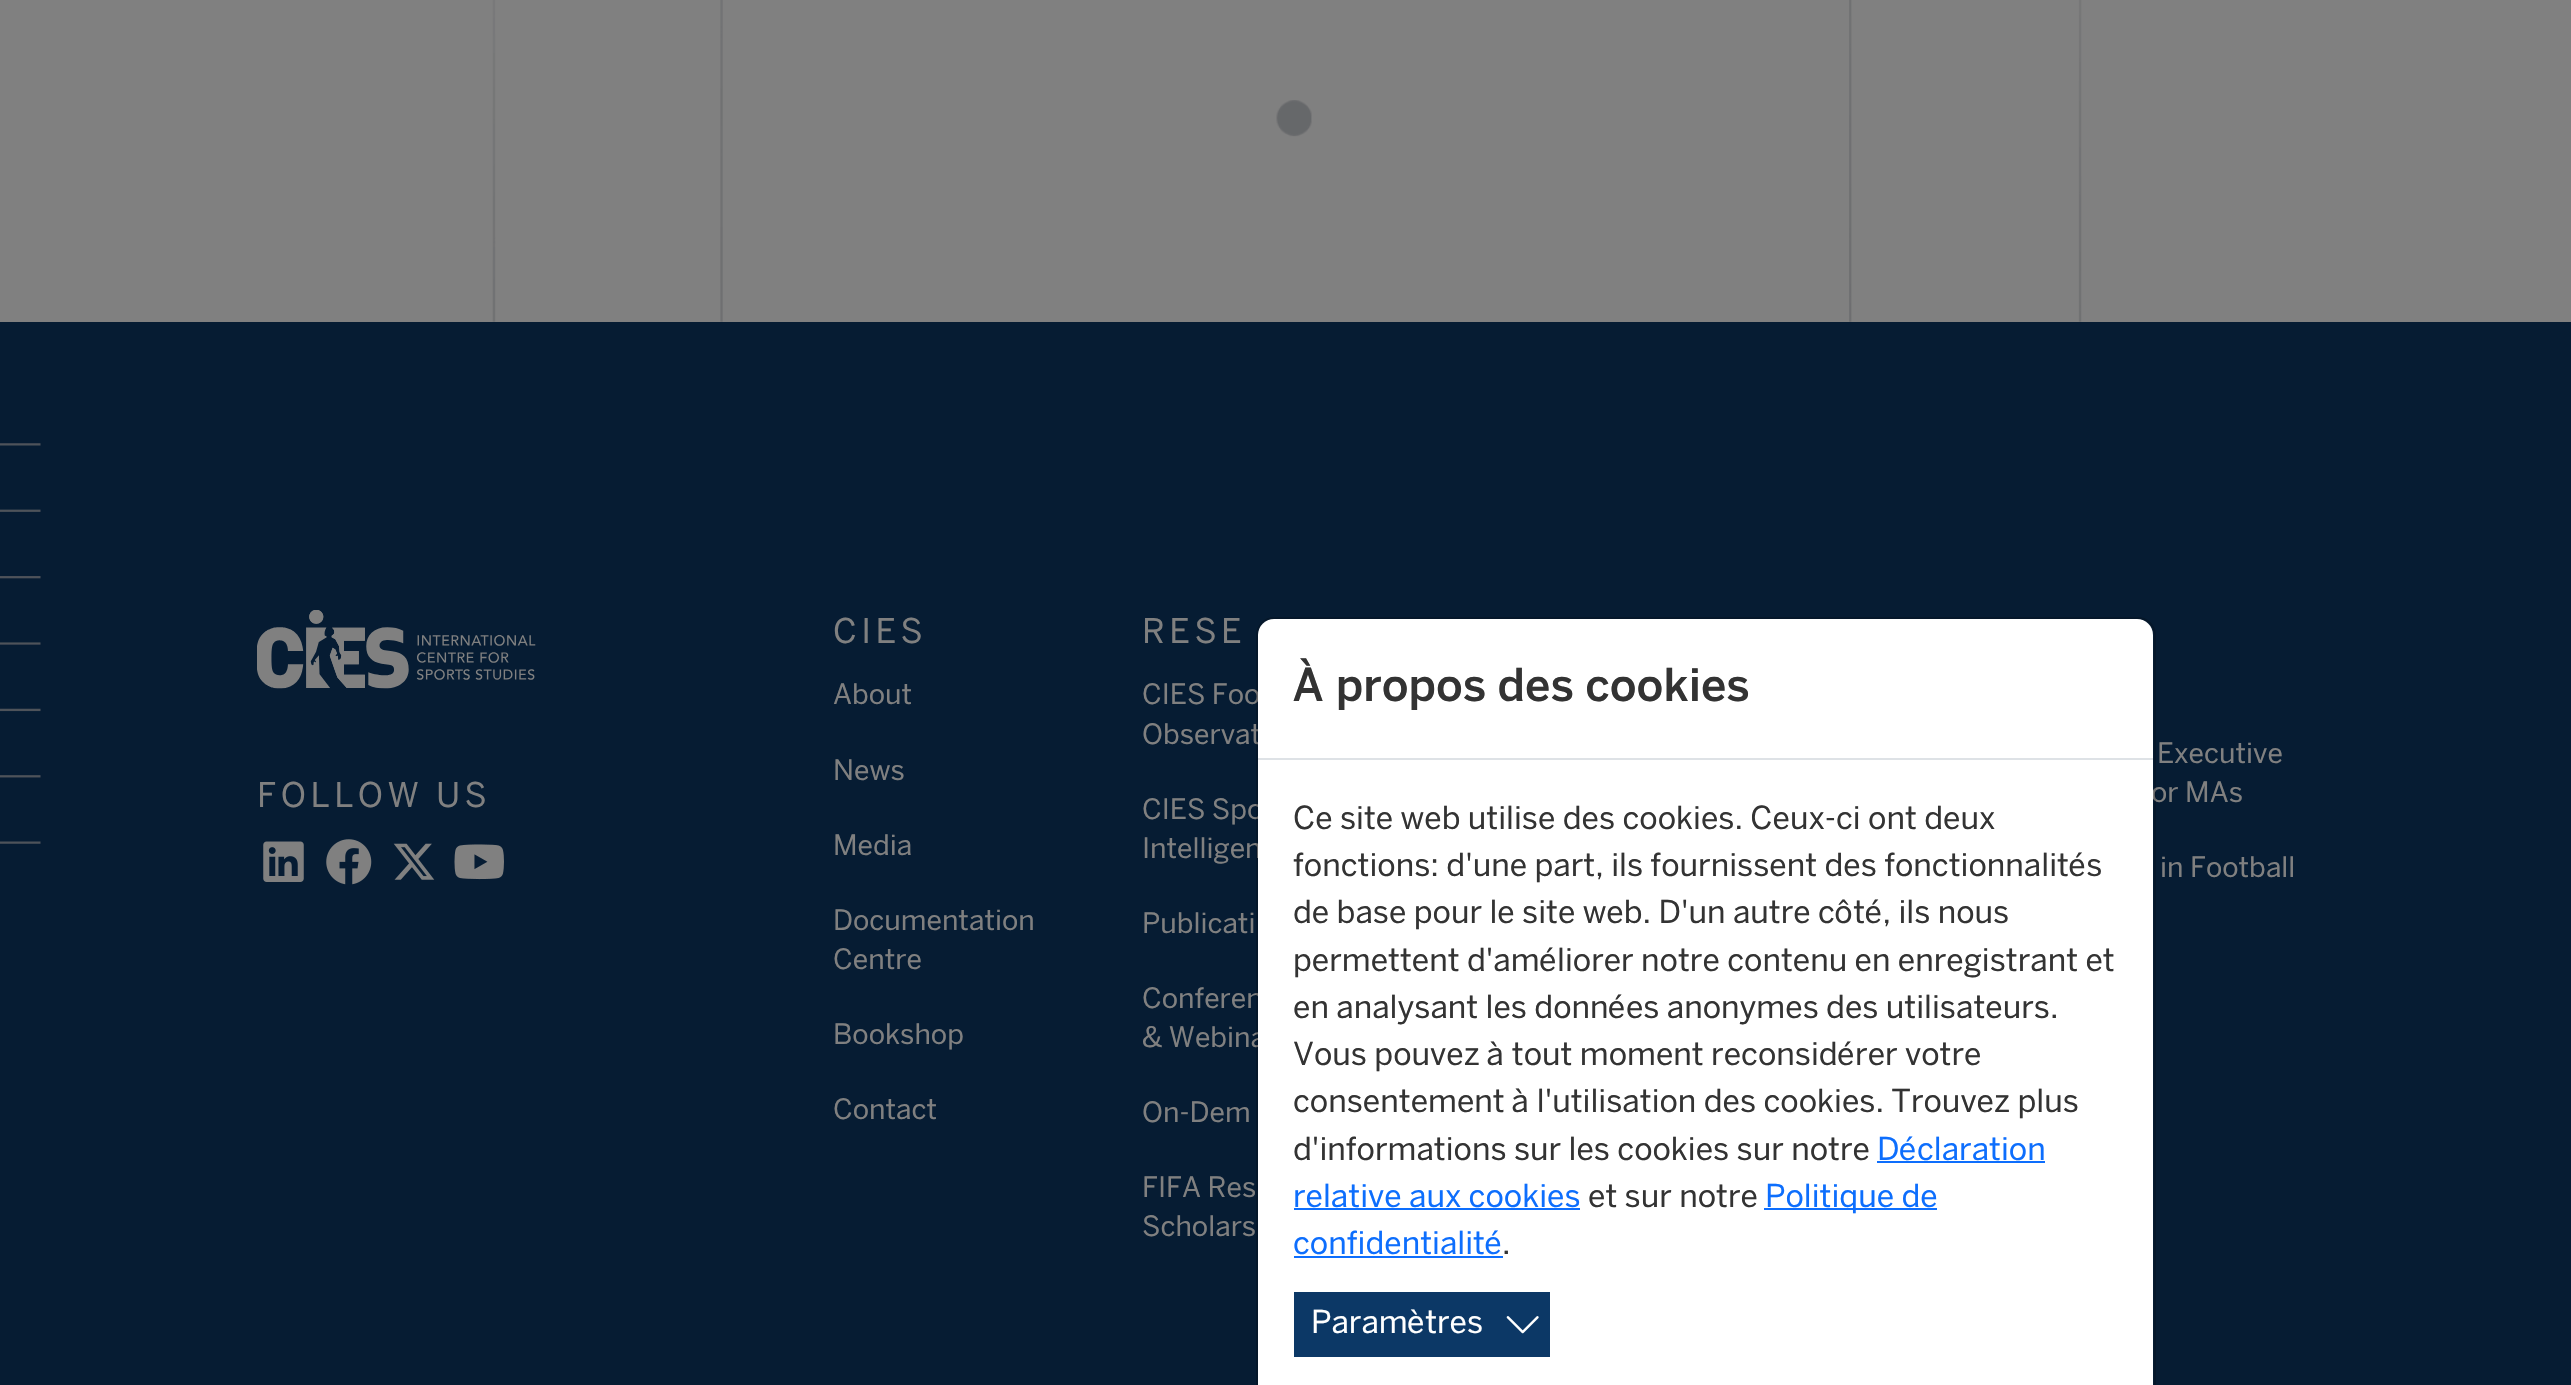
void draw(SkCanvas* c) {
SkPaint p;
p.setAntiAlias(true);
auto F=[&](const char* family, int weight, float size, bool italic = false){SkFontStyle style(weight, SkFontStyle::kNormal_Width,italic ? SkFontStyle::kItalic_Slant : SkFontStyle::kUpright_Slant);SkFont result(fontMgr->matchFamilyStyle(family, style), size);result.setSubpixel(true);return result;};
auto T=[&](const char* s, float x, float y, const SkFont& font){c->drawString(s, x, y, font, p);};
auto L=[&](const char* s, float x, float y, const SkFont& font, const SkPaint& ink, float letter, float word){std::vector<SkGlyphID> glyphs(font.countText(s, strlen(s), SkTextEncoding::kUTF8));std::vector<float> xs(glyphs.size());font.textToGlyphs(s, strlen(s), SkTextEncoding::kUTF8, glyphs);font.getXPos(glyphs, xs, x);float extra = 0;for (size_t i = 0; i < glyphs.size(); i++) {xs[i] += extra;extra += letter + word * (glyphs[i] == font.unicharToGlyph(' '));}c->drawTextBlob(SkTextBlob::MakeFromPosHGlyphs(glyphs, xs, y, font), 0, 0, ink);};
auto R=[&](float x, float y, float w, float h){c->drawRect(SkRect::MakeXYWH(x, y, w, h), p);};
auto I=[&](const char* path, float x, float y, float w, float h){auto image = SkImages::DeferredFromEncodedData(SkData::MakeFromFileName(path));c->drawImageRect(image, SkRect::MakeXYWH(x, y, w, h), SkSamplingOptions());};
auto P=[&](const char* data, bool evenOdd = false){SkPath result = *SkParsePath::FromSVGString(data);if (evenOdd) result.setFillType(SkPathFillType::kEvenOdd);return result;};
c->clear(0xff808080);
I("1.png",492,0,1590,322);
p.setColor(0xff061c33);
R(0,322,2571,1063);
I("2.png",0,443,41,401);
I("3.png",257,610,279,79);
auto f1 = F("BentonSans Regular",400,33.75);
p.setColor(0xff808080);
L("FOLLOW US",257,807,f1,p,4.5,0);
I("4.png",263,841,41,41);
I("5.png",326,839,46,46);
I("6.png",393,843,42,37);
I("7.png",454,844,50,36);
L("CIES",833,643,f1,p,4.5,0);
auto f2 = F("BentonSans Regular",400,28);
T("About",833,704,f2);
T("News",833,780,f2);
T("Media",833,855,f2);
T("Documentation",833,930,f2);
T("Centre",833,969,f2);
T("Bookshop",833,1044,f2);
T("Contact",833,1119,f2);
L("RESE",1142,643,f1,p,4.5,0);
T("CIES Foo",1142,704,f2);
T("Observat",1142,744,f2);
T("CIES Spo",1142,819,f2);
T("Intelligen",1142,858,f2);
T("Publicati",1142,933,f2);
T("Conferen",1142,1008,f2);
T("& Webina",1142,1047,f2);
T("On-Dem",1142,1122,f2);
T("FIFA Res",1142,1197,f2);
T("Scholars",1142,1236,f2);
T("Executive",2157,763,f2);
T("or MAs",2151,802,f2);
T("in Football",2160,877,f2);
p.setColor(0xffffffff);
c->drawPath(P("M1274 619h863c9 0 16 7 16 16v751h-895v-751c0-9 7-16 16-16z"),p);
p.setStroke(true);
p.setStrokeWidth(2);
p.setColor(0x2e000000);
c->drawRoundRect(SkRect::MakeXYWH(1257,618,898,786),17,17,p);
p.setStroke(false);
p.setColor(0xffdee2e6);
R(1258,758,895,2);
auto f3 = F("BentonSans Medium",500,45);
p.setColor(0xff333333);
T("À propos des cookies",1293,701,f3);
auto f4 = F("BentonSans Regular",400,31.5);
T("Ce site web utilise des cookies. Ceux-ci ont deux",1293,829,f4);
T("fonctions: d'une part, ils fournissent des fonctionnalités",1293,876,f4);
T("de base pour le site web. D'un autre côté, ils nous",1293,923,f4);
T("permettent d'améliorer notre contenu en enregistrant et",1293,971,f4);
T("en analysant les données anonymes des utilisateurs.",1293,1018,f4);
T("Vous pouvez à tout moment reconsidérer votre",1293,1065,f4);
T("consentement à l'utilisation des cookies. Trouvez plus",1293,1112,f4);
T("d'informations sur les cookies sur notre",1293,1160,f4);
p.setColor(0xff0d6efd);
T("Déclaration",1877,1160,f4);
R(1877,1161,168,2);
T("relative aux cookies",1293,1207,f4);
R(1294,1208,286,2);
p.setColor(0xff333333);
T("et sur notre",1588,1207,f4);
p.setColor(0xff0d6efd);
R(1764,1208,173,2);
T("Politique de",1765,1207,f4);
T("confidentialité",1293,1254,f4);
R(1294,1256,209,2);
p.setColor(0xff333333);
T(".",1502,1254,f4);
p.setColor(0xff0c3866);
R(1294,1292,256,65);
p.setColor(0xffffffff);
T("Paramètres",1311,1333,f4);
I("8.png",1506,1316,33,18);
}
